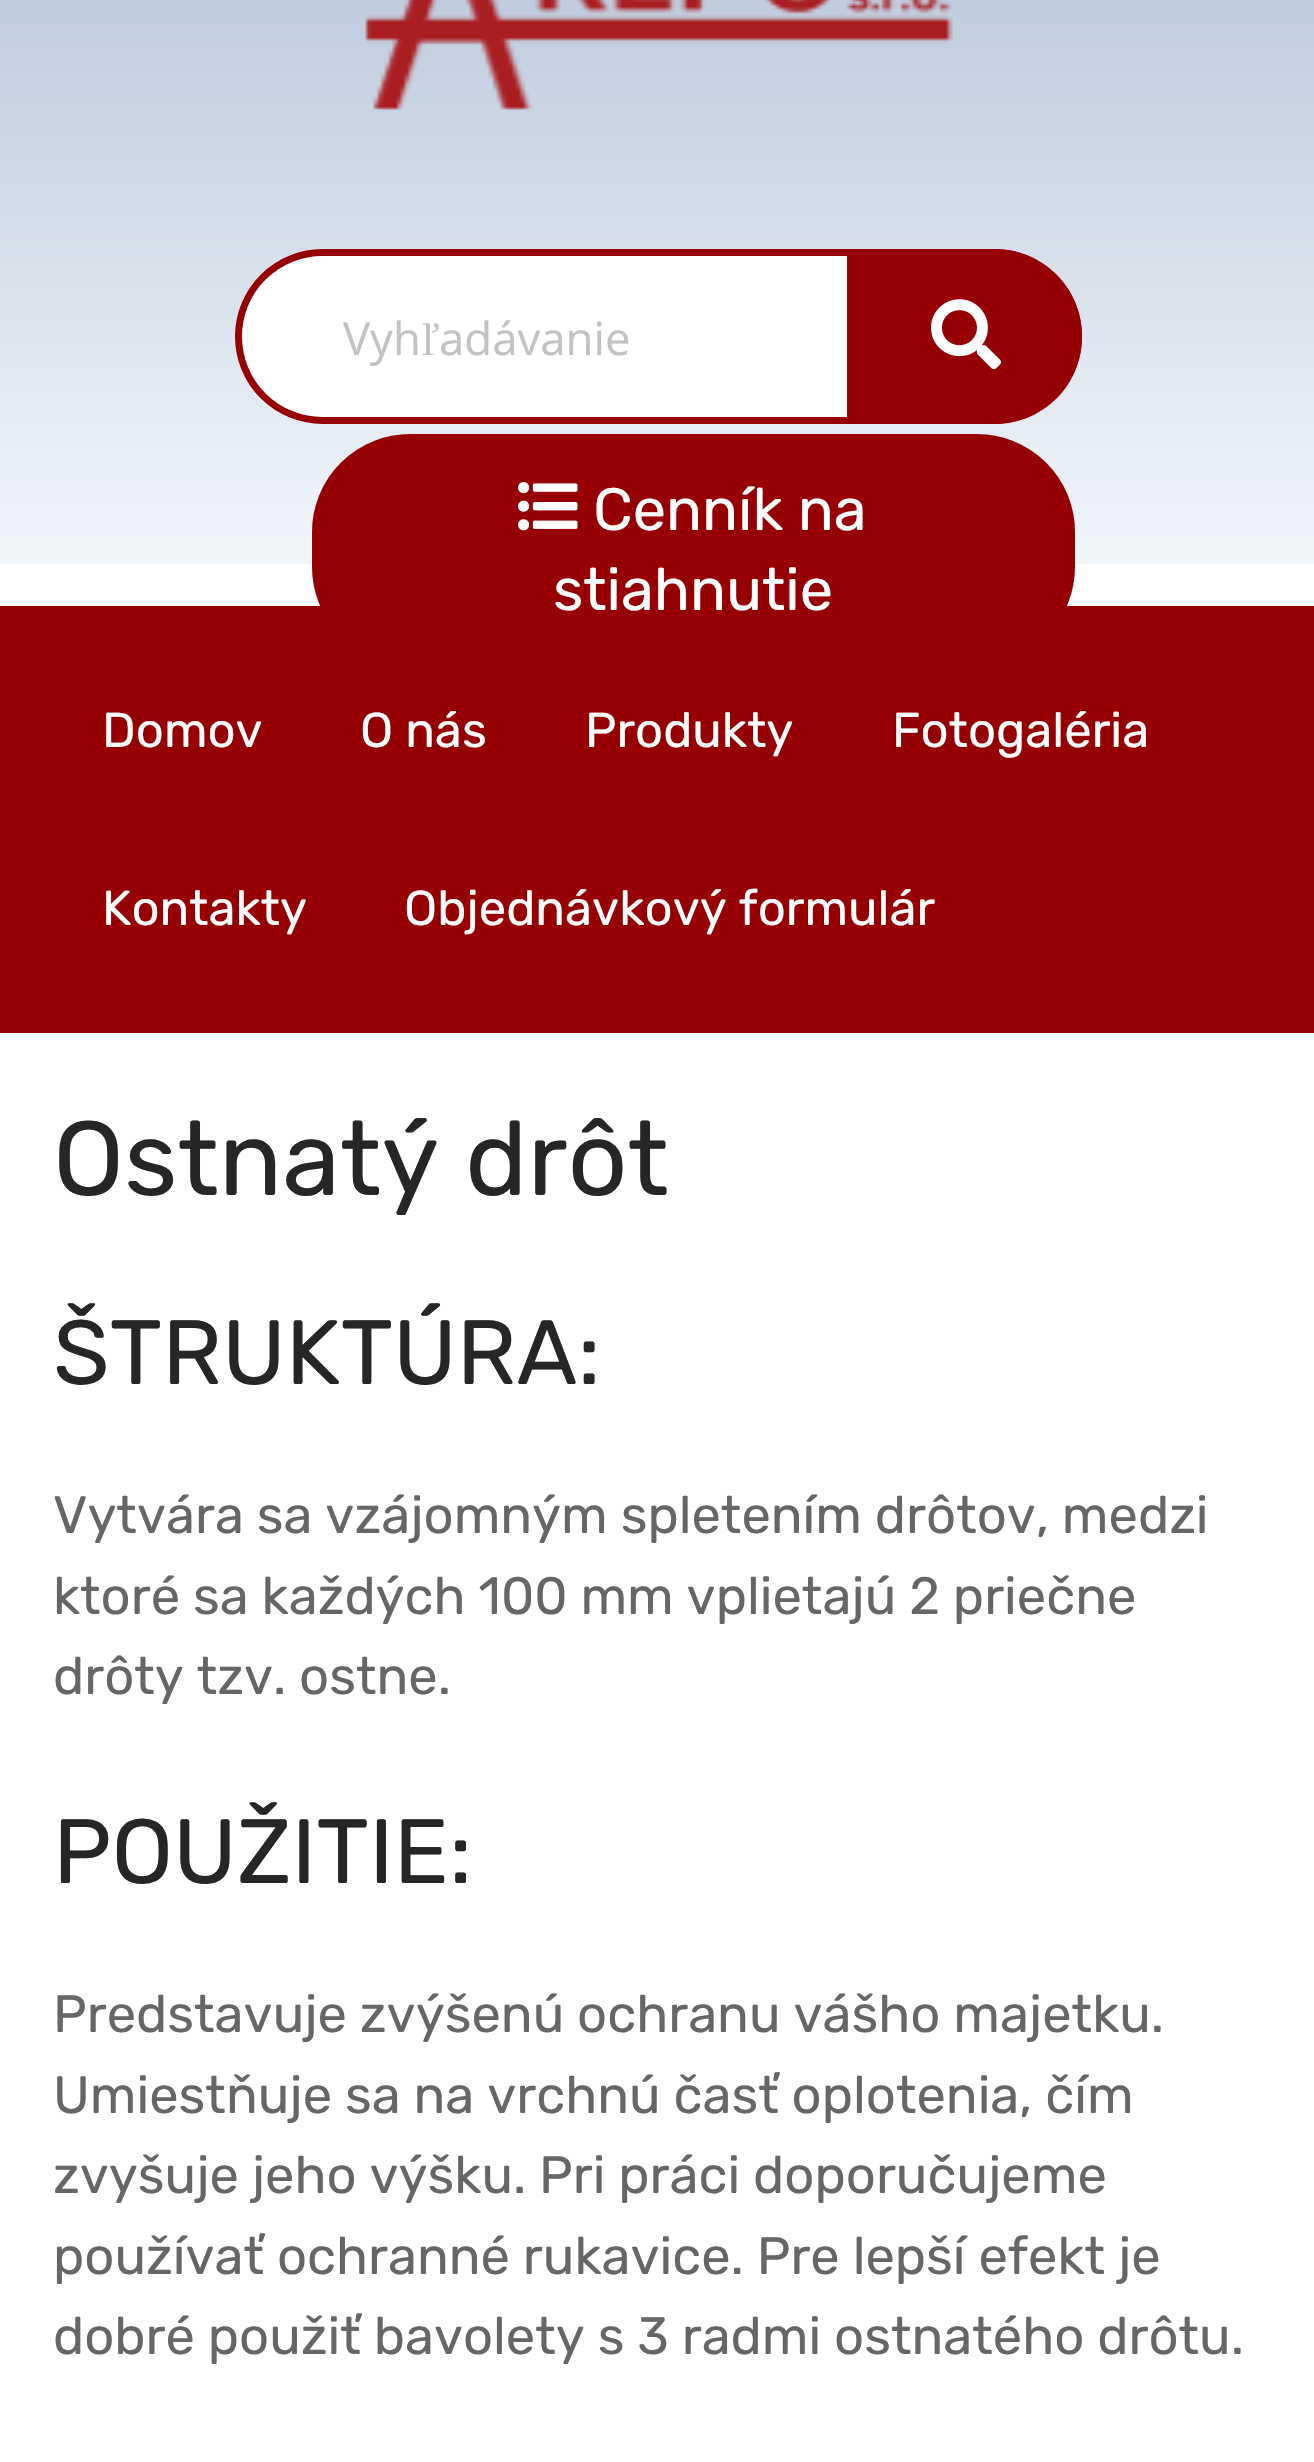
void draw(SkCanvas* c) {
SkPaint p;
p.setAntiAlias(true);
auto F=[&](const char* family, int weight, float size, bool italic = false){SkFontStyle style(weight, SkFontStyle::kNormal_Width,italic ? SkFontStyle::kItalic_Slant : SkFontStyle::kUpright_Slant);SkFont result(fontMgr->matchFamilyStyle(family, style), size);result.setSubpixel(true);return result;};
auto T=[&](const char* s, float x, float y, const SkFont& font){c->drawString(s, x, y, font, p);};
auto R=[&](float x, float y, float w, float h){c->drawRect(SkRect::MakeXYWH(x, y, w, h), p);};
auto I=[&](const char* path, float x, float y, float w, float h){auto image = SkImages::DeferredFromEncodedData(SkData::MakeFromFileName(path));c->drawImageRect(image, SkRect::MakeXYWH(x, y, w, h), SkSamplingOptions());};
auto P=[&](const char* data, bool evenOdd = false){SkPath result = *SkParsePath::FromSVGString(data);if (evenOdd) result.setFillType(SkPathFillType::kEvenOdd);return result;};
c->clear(0xffffffff);
{
const SkColor colors[] = {0xffb3c2d7,0xfff1f6fa};
const float stops[] = {0,1};
const SkPoint ends[] = {{658,-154}, {658,564}};
p.setShader(SkGradientShader::MakeLinear(ends, colors, stops, 2, SkTileMode::kClamp));
p.setAlpha(255);
}
R(0,0,1314,564);
I("1.png",365,0,588,110);
p.setShader(nullptr);
p.setColor(0xffffffff);
c->drawRoundRect(SkRect::MakeXYWH(238.5,252.5,840,168),84,84,p);
p.setStroke(true);
p.setStrokeWidth(7);
p.setColor(0xff960002);
c->drawRoundRect(SkRect::MakeXYWH(238.5,252.5,840,168),84,84,p);
auto f1 = F("Open Sans",400,45.5);
p.setStroke(false);
p.setColor(0xffc2c2c2);
T("Vyh",343,355,f1);
auto f2 = F("Liberation Serif",400,45.5);
T("ľ",421,355,f2);
T("adávanie",439,355,f1);
p.setColor(0xff960002);
c->drawPath(P("M847 249h147.5c48.5 0 87.5 39 87.5 87.5c0 48.5-39 87.5-87.5 87.5h-147.5z"),p);
I("2.png",931,299,70,71);
R(0,606,1314,427);
p.setColor(0xff960003);
c->drawRoundRect(SkRect::MakeXYWH(314,436,759,227),96,96,p);
p.setStroke(true);
p.setStrokeWidth(4);
c->drawRoundRect(SkRect::MakeXYWH(314,436,759,227),96,96,p);
I("3.png",518,482,60,49);
auto f3 = F("Rubik",400,59.5);
p.setStroke(false);
p.setColor(0xffffffff);
T("Cenník na",593,530,f3);
T("stiahnutie",553,610,f3);
auto f4 = F("Rubik",400,49);
T("Domov",102,747,f4);
T("O nás",360,747,f4);
T("Produkty",585,747,f4);
T("Fotogaléria",892,747,f4);
T("Kontakty",102,925,f4);
T("Objednávkový formulár",404,925,f4);
auto f5 = F("Rubik",400,105);
p.setColor(0xff262626);
T("Ostnatý drôt",53,1195,f5);
auto f6 = F("Rubik",400,91);
T("ŠTRUKTÚRA:",53,1384,f6);
auto f7 = F("Rubik",400,52.5);
p.setColor(0xff666666);
T("Vytvára sa vzájomným spletením drôtov, medzi",53,1533,f7);
T("ktoré sa každých 100 mm vplietajú 2 priečne",53,1614,f7);
T("drôty tzv. ostne.",53,1694,f7);
p.setColor(0xff262626);
T("POUŽITIE:",53,1883,f6);
p.setColor(0xff666666);
T("Predstavuje zvýšenú ochranu vášho majetku.",53,2032,f7);
T("Umiestňuje sa na vrchnú časť oplotenia, čím",53,2113,f7);
T("zvyšuje jeho výšku. Pri práci doporučujeme",53,2193,f7);
T("používať ochranné rukavice. Pre lepší efekt je",53,2274,f7);
T("dobré použiť bavolety s 3 radmi ostnatého drôtu.",53,2354,f7);
}
